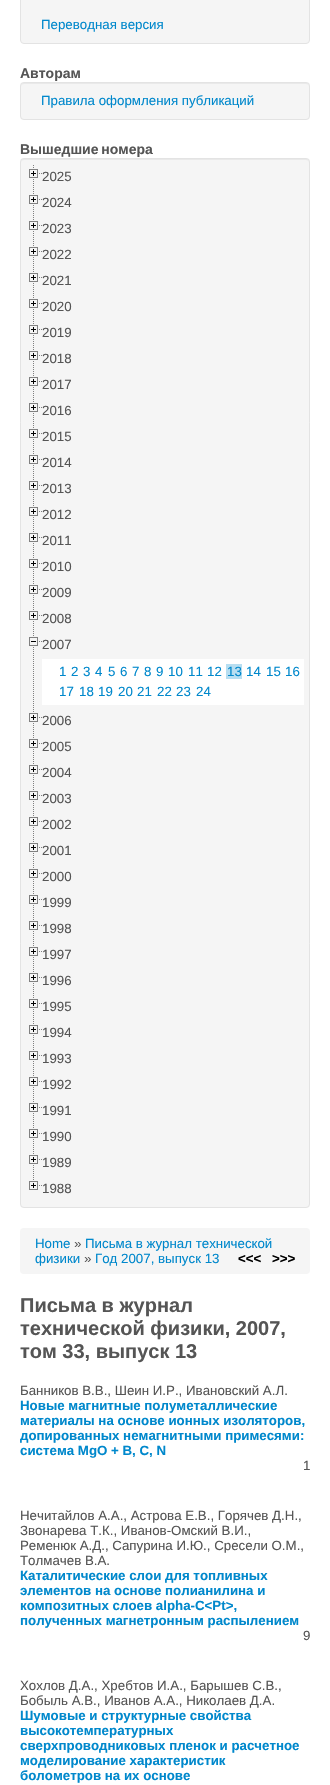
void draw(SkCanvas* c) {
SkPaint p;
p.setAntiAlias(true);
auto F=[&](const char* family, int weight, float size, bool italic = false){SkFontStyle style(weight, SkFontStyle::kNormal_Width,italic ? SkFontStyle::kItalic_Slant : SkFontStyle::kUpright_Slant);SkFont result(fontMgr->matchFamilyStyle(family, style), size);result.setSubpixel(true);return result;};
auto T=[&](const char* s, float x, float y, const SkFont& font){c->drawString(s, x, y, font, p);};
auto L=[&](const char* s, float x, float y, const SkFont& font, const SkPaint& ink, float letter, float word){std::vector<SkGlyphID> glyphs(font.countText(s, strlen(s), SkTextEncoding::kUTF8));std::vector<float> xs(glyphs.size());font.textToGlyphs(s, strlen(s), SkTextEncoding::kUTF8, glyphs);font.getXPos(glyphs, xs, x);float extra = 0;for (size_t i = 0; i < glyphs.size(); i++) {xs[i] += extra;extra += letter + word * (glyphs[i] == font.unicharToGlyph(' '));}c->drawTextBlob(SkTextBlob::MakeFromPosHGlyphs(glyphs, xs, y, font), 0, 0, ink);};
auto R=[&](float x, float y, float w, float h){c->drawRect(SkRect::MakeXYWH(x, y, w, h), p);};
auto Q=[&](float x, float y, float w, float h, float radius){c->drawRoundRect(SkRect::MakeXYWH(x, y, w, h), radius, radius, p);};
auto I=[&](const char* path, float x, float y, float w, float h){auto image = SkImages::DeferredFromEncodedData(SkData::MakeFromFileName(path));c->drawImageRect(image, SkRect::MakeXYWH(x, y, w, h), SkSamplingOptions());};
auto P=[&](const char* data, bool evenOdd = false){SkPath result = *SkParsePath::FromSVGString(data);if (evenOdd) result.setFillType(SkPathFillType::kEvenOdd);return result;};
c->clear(0xffffffff);
p.setColor(0xfff5f5f5);
c->drawRoundRect(SkRect::MakeXYWH(20.5,-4.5,289,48),3.5,3.5,p);
p.setStroke(true);
p.setStrokeWidth(1);
p.setColor(0xffe3e3e3);
c->drawRoundRect(SkRect::MakeXYWH(20.5,-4.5,289,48),3.5,3.5,p);
auto f1 = F("Liberation Sans",400,13.3);
p.setStroke(false);
p.setColor(0xff0088cc);
T("Переводная версия",41,29,f1);
auto f2 = F("Liberation Sans",700,14);
p.setColor(0xff555555);
T("Авторам",20,78,f2);
p.setColor(0xfff5f5f5);
Q(20,82,290,38,4);
p.setColor(0xffe9e9e9);
c->drawPath(P("M24 84h282c2 0 3 1 3 3c0-2-1-4-3-4h-282c-2 0-3 2-3 4c0-2 1-3 3-3z"),p);
p.setStroke(true);
p.setColor(0xffe3e3e3);
c->drawRoundRect(SkRect::MakeXYWH(20.5,82.5,289,37),3.5,3.5,p);
p.setStroke(false);
p.setColor(0xff0088cc);
T("Правила оформления публикаций",41,105,f1);
p.setColor(0xff555555);
L("Вышедшие номера",20,154,f2,p,0,-1);
p.setColor(0xfff5f5f5);
Q(20,158,290,1050,4);
p.setColor(0xffe9e9e9);
c->drawPath(P("M24 160h282c2 0 3 1 3 3c0-2-1-4-3-4h-282c-2 0-3 2-3 4c0-2 1-3 3-3z"),p);
p.setStroke(true);
p.setColor(0xffe3e3e3);
c->drawRoundRect(SkRect::MakeXYWH(20.5,158.5,289,1049),3.5,3.5,p);
I("1.png",33,165,1,25);
I("2.png",29,169,13,9);
p.setStroke(false);
p.setColor(0xff555555);
T("2025",42,181,f1);
I("1.png",33,191,1,25);
I("2.png",29,195,13,9);
T("2024",42,207,f1);
I("1.png",33,217,1,25);
I("2.png",29,221,13,9);
T("2023",42,233,f1);
I("1.png",33,243,1,25);
I("2.png",29,247,13,9);
T("2022",42,259,f1);
I("1.png",33,269,1,25);
I("2.png",29,273,13,9);
T("2021",42,285,f1);
I("1.png",33,295,1,25);
I("2.png",29,299,13,9);
T("2020",42,311,f1);
I("1.png",33,321,1,25);
I("2.png",29,325,13,9);
T("2019",42,337,f1);
I("1.png",33,347,1,25);
I("2.png",29,351,13,9);
T("2018",42,363,f1);
I("1.png",33,373,1,25);
I("2.png",29,377,13,9);
T("2017",42,389,f1);
I("1.png",33,399,1,25);
I("2.png",29,403,13,9);
T("2016",42,415,f1);
I("1.png",33,425,1,25);
I("2.png",29,429,13,9);
T("2015",42,441,f1);
I("1.png",33,451,1,25);
I("2.png",29,455,13,9);
T("2014",42,467,f1);
I("1.png",33,477,1,25);
I("2.png",29,481,13,9);
T("2013",42,493,f1);
I("1.png",33,503,1,25);
I("2.png",29,507,13,9);
T("2012",42,519,f1);
I("1.png",33,529,1,25);
I("2.png",29,533,13,9);
T("2011",42,545,f1);
I("1.png",33,555,1,25);
I("2.png",29,559,13,9);
T("2010",42,571,f1);
I("1.png",33,581,1,25);
I("2.png",29,585,13,9);
T("2009",42,597,f1);
I("1.png",33,607,1,25);
I("2.png",29,611,13,9);
T("2008",42,623,f1);
I("3.png",33,633,1,75);
I("4.png",29,637,13,9);
T("2007",42,649,f1);
p.setColor(0xffffffff);
R(42,659,262,46);
p.setColor(0xff0088cc);
T("1",59,676,f1);
T("2",71,676,f1);
T("3",83,676,f1);
T("4",95,676,f1);
T("5",108,676,f1);
T("6",120,676,f1);
T("7",132,676,f1);
T("8",144,676,f1);
T("9",156,676,f1);
T("10",168,676,f1);
T("11",188,676,f1);
T("12",207,676,f1);
p.setColor(0xffb7def1);
R(226,664,16,15);
p.setColor(0xff0088cc);
T("13",227,676,f1);
T("14",246,676,f1);
T("15",266,676,f1);
T("16",285,676,f1);
T("17",59,696,f1);
T("18",79,696,f1);
T("19",98,696,f1);
T("20",118,696,f1);
T("21",137,696,f1);
T("22",157,696,f1);
T("23",176,696,f1);
T("24",196,696,f1);
I("1.png",33,709,1,25);
I("2.png",29,713,13,9);
p.setColor(0xff555555);
T("2006",42,725,f1);
I("1.png",33,735,1,25);
I("2.png",29,739,13,9);
T("2005",42,751,f1);
I("1.png",33,761,1,25);
I("2.png",29,765,13,9);
T("2004",42,777,f1);
I("1.png",33,787,1,25);
I("2.png",29,791,13,9);
T("2003",42,803,f1);
I("1.png",33,813,1,25);
I("2.png",29,817,13,9);
T("2002",42,829,f1);
I("1.png",33,839,1,25);
I("2.png",29,843,13,9);
T("2001",42,855,f1);
I("1.png",33,865,1,25);
I("2.png",29,869,13,9);
T("2000",42,881,f1);
I("1.png",33,891,1,25);
I("2.png",29,895,13,9);
T("1999",42,907,f1);
I("1.png",33,917,1,25);
I("2.png",29,921,13,9);
T("1998",42,933,f1);
I("1.png",33,943,1,25);
I("2.png",29,947,13,9);
T("1997",42,959,f1);
I("1.png",33,969,1,25);
I("2.png",29,973,13,9);
T("1996",42,985,f1);
I("1.png",33,995,1,25);
I("2.png",29,999,13,9);
T("1995",42,1011,f1);
I("1.png",33,1021,1,25);
I("2.png",29,1025,13,9);
T("1994",42,1037,f1);
I("1.png",33,1047,1,25);
I("2.png",29,1051,13,9);
T("1993",42,1063,f1);
I("1.png",33,1073,1,25);
I("2.png",29,1077,13,9);
T("1992",42,1089,f1);
I("1.png",33,1099,1,25);
I("2.png",29,1103,13,9);
T("1991",42,1115,f1);
I("1.png",33,1125,1,25);
I("2.png",29,1129,13,9);
T("1990",42,1141,f1);
I("1.png",33,1151,1,25);
I("2.png",29,1155,13,9);
T("1989",42,1167,f1);
I("5.png",29,1177,13,13);
T("1988",42,1193,f1);
p.setColor(0xfff5f5f5);
Q(20,1228,290,46,4);
p.setColor(0xff0088cc);
T("Home",35,1248,f1);
p.setColor(0xff555555);
T("»",74,1248,f1);
p.setColor(0xff0088cc);
T("Письма в журнал технической",85,1248,f1);
T("физики",35,1263,f1);
p.setColor(0xff555555);
T("»",84,1263,f1);
p.setColor(0xff0088cc);
T("Год 2007, выпуск 13",95,1263,f1);
auto f3 = F("Liberation Sans",700,13.3);
p.setColor(0xff000000);
T("<<<",238,1263,f3);
T(">>>",272,1263,f3);
auto f4 = F("Liberation Sans",700,20);
p.setColor(0xff555555);
T("Письма в журнал",20,1312,f4);
T("технической физики, 2007,",20,1335,f4);
T("том 33, выпуск 13",20,1358,f4);
T("Банников В.В., Шеин И.Р., Ивановский А.Л.",20,1395,f1);
p.setColor(0xff0088cc);
T("Новые магнитные полуметаллические",20,1410,f3);
T("материалы на основе ионных изоляторов,",20,1425,f3);
T("допированных немагнитными примесями:",20,1440,f3);
T("система MgO + B, C, N",20,1455,f3);
p.setColor(0xff555555);
T("1",303,1470,f1);
T("Нечитайлов А.А., Астрова Е.В., Горячев Д.Н.,",20,1520,f1);
T("Звонарева Т.К., Иванов-Омский В.И.,",20,1535,f1);
T("Ременюк А.Д., Сапурина И.Ю., Сресели О.М.,",20,1550,f1);
T("Толмачев В.А.",20,1565,f1);
p.setColor(0xff0088cc);
T("Каталитические слои для топливных",20,1580,f3);
T("элементов на основе полианилина и",20,1595,f3);
T("композитных слоев alpha-C<Pt>,",20,1610,f3);
T("полученных магнетронным распылением",20,1625,f3);
p.setColor(0xff555555);
T("9",303,1640,f1);
T("Хохлов Д.А., Хребтов И.А., Барышев С.В.,",20,1690,f1);
T("Бобыль А.В., Иванов А.А., Николаев Д.А.",20,1705,f1);
p.setColor(0xff0088cc);
T("Шумовые и структурные свойства",20,1720,f3);
T("высокотемпературных",20,1735,f3);
T("сверхпроводниковых пленок и расчетное",20,1750,f3);
T("моделирование характеристик",20,1765,f3);
T("болометров на их основе",20,1780,f3);
}
